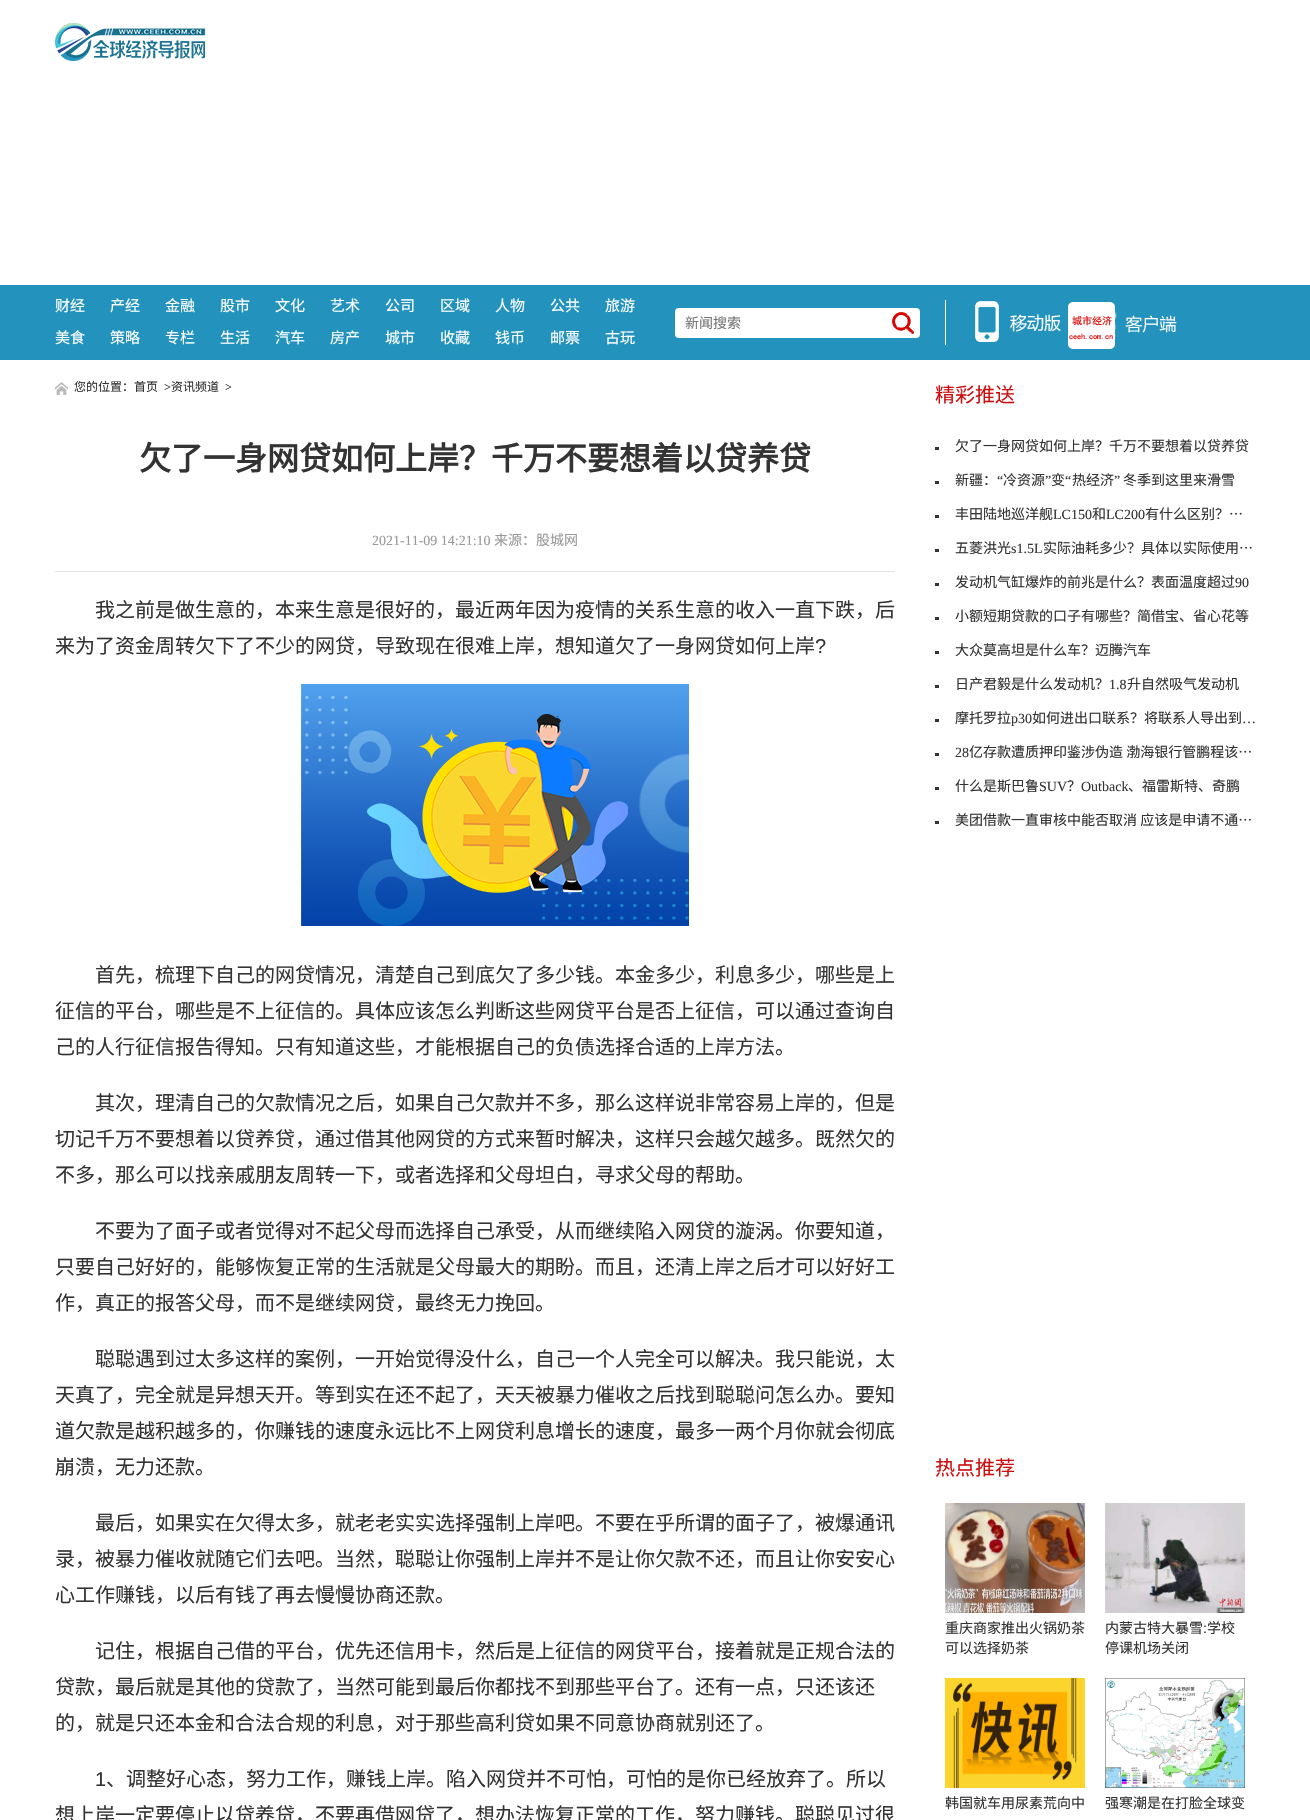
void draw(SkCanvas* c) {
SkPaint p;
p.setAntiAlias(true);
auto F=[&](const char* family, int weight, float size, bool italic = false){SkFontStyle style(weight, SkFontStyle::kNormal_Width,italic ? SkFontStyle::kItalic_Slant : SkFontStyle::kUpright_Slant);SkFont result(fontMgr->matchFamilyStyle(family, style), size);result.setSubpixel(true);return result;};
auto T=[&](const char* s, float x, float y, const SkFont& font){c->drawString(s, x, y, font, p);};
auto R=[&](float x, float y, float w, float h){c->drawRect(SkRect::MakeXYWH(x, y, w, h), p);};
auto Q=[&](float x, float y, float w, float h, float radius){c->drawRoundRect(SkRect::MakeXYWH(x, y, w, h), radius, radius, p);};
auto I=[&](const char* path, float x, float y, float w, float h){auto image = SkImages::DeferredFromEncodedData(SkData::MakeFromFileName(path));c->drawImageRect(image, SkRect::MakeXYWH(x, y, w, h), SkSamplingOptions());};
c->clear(0xffffffff);
I("1.png",55,23,150,38);
p.setColor(0xff2393be);
R(0,285,1310,75);
auto f1 = F("Noto Sans CJK SC",400,15);
p.setColor(0xffffffff);
T("财经",55,311,f1);
T("产经",110,311,f1);
T("金融",165,311,f1);
T("股市",220,311,f1);
T("文化",275,311,f1);
T("艺术",330,311,f1);
T("公司",385,311,f1);
T("区域",440,311,f1);
T("人物",495,311,f1);
T("公共",550,311,f1);
T("旅游",605,311,f1);
T("美食",55,343,f1);
T("策略",110,343,f1);
T("专栏",165,343,f1);
T("生活",220,343,f1);
T("汽车",275,343,f1);
T("房产",330,343,f1);
T("城市",385,343,f1);
T("收藏",440,343,f1);
T("钱币",495,343,f1);
T("邮票",550,343,f1);
T("古玩",605,343,f1);
Q(675,308,245,30,4);
auto f2 = F("Noto Sans CJK SC",400,14);
p.setColor(0xff757575);
T("新闻搜索",685,328,f2);
I("2.png",892,312,22,22);
p.setColor(0xffffffff);
R(945,300,1,45);
I("3.png",975,301,86,41);
I("4.png",1068,302,109,47);
I("5.png",55,382,13,13);
auto f3 = F("Noto Sans CJK SC",400,12);
p.setColor(0xff333333);
T("您的位置：首页",74,391,f3);
auto f4 = F("Liberation Serif",400,12);
T(">",164,391,f4);
T("资讯频道",171,391,f3);
T(">",225,391,f4);
auto f5 = F("Noto Sans CJK SC",700,32);
T("欠了一身网贷如何上岸？千万不要想着以贷养贷",139,470,f5);
p.setColor(0xffe5e5e5);
R(55,571,840,1);
auto f6 = F("Liberation Serif",400,14);
p.setColor(0xff999999);
T("2021-11-09 14:21:10",372,545,f6);
T("来源：股城网",494,545,f2);
auto f7 = F("Noto Sans CJK SC",400,20);
p.setColor(0xff333333);
T("我之前是做生意的，本来生意是很好的，最近两年因为疫情的关系生意的收入一直下跌，后",95,617,f7);
T("来为了资金周转欠下了不少的网贷，导致现在很难上岸，想知道欠了一身网贷如何上岸",55,653,f7);
auto f8 = F("Liberation Sans",400,20);
T("?",815,653,f8);
I("6.png",301,684,388,242);
T("首先，梳理下自己的网贷情况，清楚自己到底欠了多少钱。本金多少，利息多少，哪些是上",95,982,f7);
T("征信的平台，哪些是不上征信的。具体应该怎么判断这些网贷平台是否上征信，可以通过查询自",55,1018,f7);
T("己的人行征信报告得知。只有知道这些，才能根据自己的负债选择合适的上岸方法。",55,1054,f7);
T("其次，理清自己的欠款情况之后，如果自己欠款并不多，那么这样说非常容易上岸的，但是",95,1110,f7);
T("切记千万不要想着以贷养贷，通过借其他网贷的方式来暂时解决，这样只会越欠越多。既然欠的",55,1146,f7);
T("不多，那么可以找亲戚朋友周转一下，或者选择和父母坦白，寻求父母的帮助。",55,1182,f7);
T("不要为了面子或者觉得对不起父母而选择自己承受，从而继续陷入网贷的漩涡。你要知道，",95,1238,f7);
T("只要自己好好的，能够恢复正常的生活就是父母最大的期盼。而且，还清上岸之后才可以好好工",55,1274,f7);
T("作，真正的报答父母，而不是继续网贷，最终无力挽回。",55,1310,f7);
T("聪聪遇到过太多这样的案例，一开始觉得没什么，自己一个人完全可以解决。我只能说，太",95,1366,f7);
T("天真了，完全就是异想天开。等到实在还不起了，天天被暴力催收之后找到聪聪问怎么办。要知",55,1402,f7);
T("道欠款是越积越多的，你赚钱的速度永远比不上网贷利息增长的速度，最多一两个月你就会彻底",55,1438,f7);
T("崩溃，无力还款。",55,1474,f7);
T("最后，如果实在欠得太多，就老老实实选择强制上岸吧。不要在乎所谓的面子了，被爆通讯",95,1530,f7);
T("录，被暴力催收就随它们去吧。当然，聪聪让你强制上岸并不是让你欠款不还，而且让你安安心",55,1566,f7);
T("心工作赚钱，以后有钱了再去慢慢协商还款。",55,1602,f7);
T("记住，根据自己借的平台，优先还信用卡，然后是上征信的网贷平台，接着就是正规合法的",95,1658,f7);
T("贷款，最后就是其他的贷款了，当然可能到最后你都找不到那些平台了。还有一点，只还该还",55,1694,f7);
T("的，就是只还本金和合法合规的利息，对于那些高利贷如果不同意协商就别还了。",55,1730,f7);
T("1",95,1786,f8);
T("、调整好心态，努力工作，赚钱上岸。陷入网贷并不可怕，可怕的是你已经放弃了。所以",106,1786,f7);
T("想上岸一定要停止以贷养贷，不要再借网贷了，想办法恢复正常的工作，努力赚钱。聪聪见过很",55,1822,f7);
p.setColor(0xffcc0f10);
T("精彩推送",935,402,f7);
p.setColor(0xff333333);
R(935,447,4,3);
T("欠了一身网贷如何上岸？千万不要想着以贷养贷",955,451,f2);
T("新疆：",955,485,f2);
T("“",997,485,f6);
T("冷资源",1003,485,f2);
T("”",1045,485,f6);
T("变",1051,485,f2);
T("“",1065,485,f6);
T("热经济",1072,485,f2);
T("”",1114,485,f6);
T("冬季到这里来滑雪",1123,485,f2);
R(935,481,4,3);
R(935,515,4,3);
T("丰田陆地巡洋舰",955,519,f2);
T("LC150",1053,519,f6);
T("和",1092,519,f2);
T("LC200",1106,519,f6);
T("有什么区别？…",1145,519,f2);
R(935,549,4,3);
T("五菱洪光",955,553,f2);
T("s1.5L",1011,553,f6);
T("实际油耗多少？具体以实际使用…",1043,553,f2);
R(935,583,4,3);
T("发动机气缸爆炸的前兆是什么？表面温度超过",955,587,f2);
T("90",1235,587,f6);
R(935,617,4,3);
T("小额短期贷款的口子有哪些？简借宝、省心花等",955,621,f2);
R(935,651,4,3);
T("大众莫高坦是什么车？迈腾汽车",955,655,f2);
R(935,685,4,3);
T("日产君毅是什么发动机？",955,689,f2);
T("1.8",1109,689,f6);
T("升自然吸气发动机",1127,689,f2);
R(935,719,4,3);
T("摩托罗拉",955,723,f2);
T("p30",1011,723,f6);
T("如何进出口联系？将联系人导出到",1032,723,f2);
T("…",1242,723,f6);
R(935,753,4,3);
T("28",955,757,f6);
T("亿存款遭质押印鉴涉伪造 渤海银行管鹏程该…",969,757,f2);
R(935,787,4,3);
T("什么是斯巴鲁",955,791,f2);
T("SUV",1039,791,f6);
T("？",1067,791,f2);
T("Outback",1081,791,f6);
T("、福雷斯特、奇鹏",1128,791,f2);
R(935,821,4,3);
T("美团借款一直审核中能否取消 应该是申请不通…",955,825,f2);
p.setColor(0xffcc0f10);
T("热点推荐",935,1475,f7);
I("7.png",945,1503,140,110);
p.setColor(0xff333333);
T("重庆商家推出火锅奶茶",945,1633,f2);
T("可以选择奶茶",945,1653,f2);
I("8.png",1105,1503,140,110);
T("内蒙古特大暴雪",1105,1633,f2);
auto f9 = F("Liberation Sans",400,14);
T(":",1203,1633,f9);
T("学校",1207,1633,f2);
T("停课机场关闭",1105,1653,f2);
I("9.png",945,1678,140,110);
T("韩国就车用尿素荒向中",945,1808,f2);
I("10.png",1105,1678,140,110);
T("强寒潮是在打脸全球变",1105,1808,f2);
}
